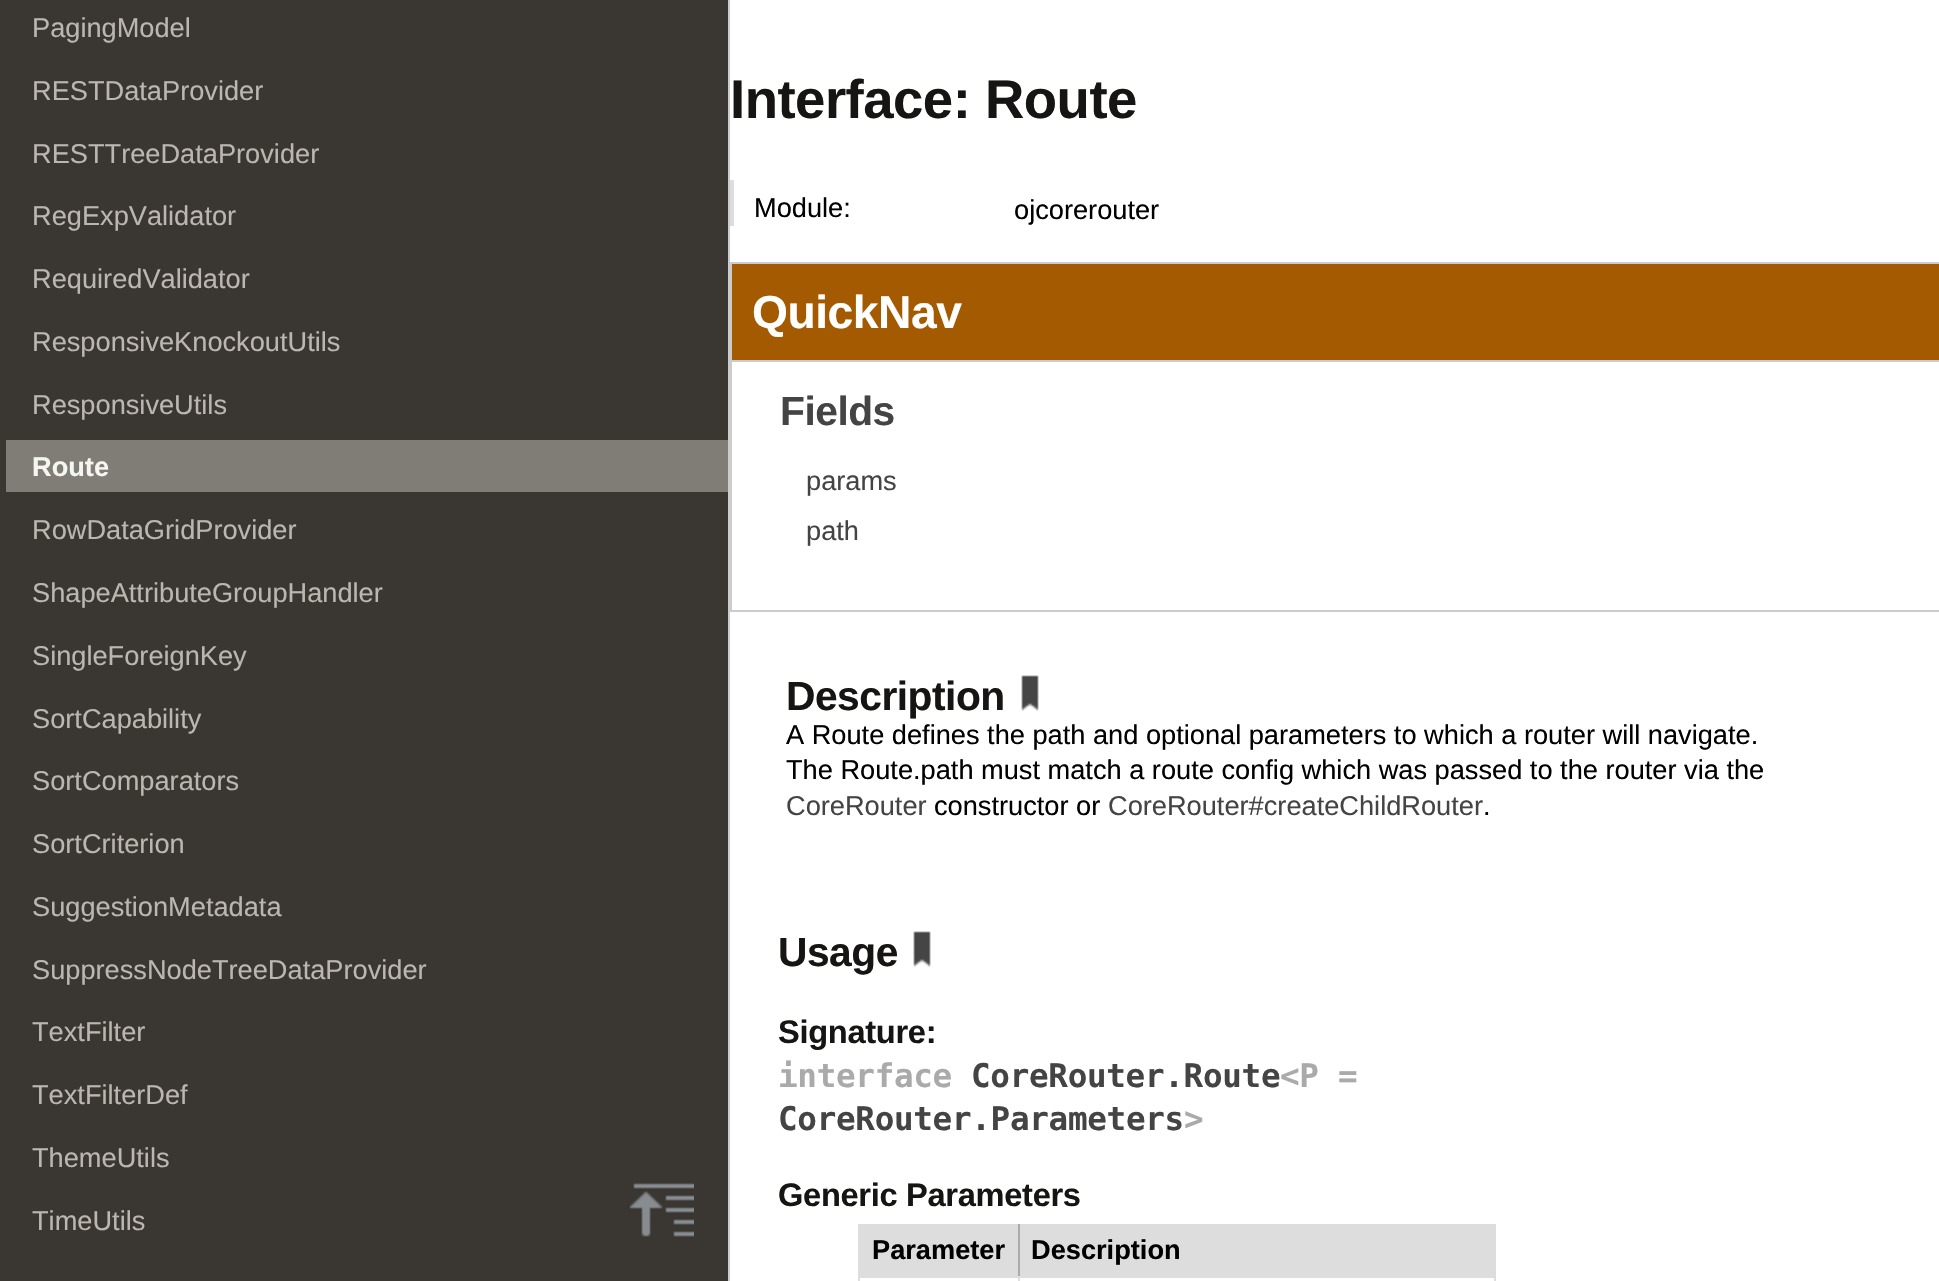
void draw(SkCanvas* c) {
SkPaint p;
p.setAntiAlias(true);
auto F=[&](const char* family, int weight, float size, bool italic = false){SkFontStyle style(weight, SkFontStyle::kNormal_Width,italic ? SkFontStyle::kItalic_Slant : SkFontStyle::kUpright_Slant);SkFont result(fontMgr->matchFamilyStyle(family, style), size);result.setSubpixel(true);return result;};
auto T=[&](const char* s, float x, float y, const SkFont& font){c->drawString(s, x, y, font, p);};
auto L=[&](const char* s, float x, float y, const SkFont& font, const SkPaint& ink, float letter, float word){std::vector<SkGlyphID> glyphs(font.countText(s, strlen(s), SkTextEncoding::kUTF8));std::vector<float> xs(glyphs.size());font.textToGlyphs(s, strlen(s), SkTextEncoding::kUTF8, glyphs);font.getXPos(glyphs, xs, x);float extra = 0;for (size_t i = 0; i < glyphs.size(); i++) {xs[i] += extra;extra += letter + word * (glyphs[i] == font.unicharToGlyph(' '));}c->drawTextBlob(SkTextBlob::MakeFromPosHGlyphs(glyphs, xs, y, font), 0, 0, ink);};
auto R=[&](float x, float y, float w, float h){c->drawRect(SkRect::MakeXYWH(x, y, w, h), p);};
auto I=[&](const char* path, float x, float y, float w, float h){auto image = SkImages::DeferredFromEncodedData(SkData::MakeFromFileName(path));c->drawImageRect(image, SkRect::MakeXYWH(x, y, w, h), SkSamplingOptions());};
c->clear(0xffffffff);
p.setColor(0xff3a3631);
R(0,0,728,1281);
p.setColor(0xffcccccc);
R(728,0,2,1281);
auto f1 = F("Liberation Sans",400,27.2);
p.setColor(0xffbcb6b1);
T("PagingModel",32,37,f1);
T("RESTDataProvider",32,100,f1);
T("RESTTreeDataProvider",32,163,f1);
T("RegExpValidator",32,225,f1);
T("RequiredValidator",32,288,f1);
T("ResponsiveKnockoutUtils",32,351,f1);
T("ResponsiveUtils",32,414,f1);
p.setColor(0xff807d77);
R(6,440,722,52);
auto f2 = F("Liberation Sans",700,27.2);
p.setColor(0xfff5f5f2);
T("Route",32,476,f2);
p.setColor(0xffbcb6b1);
T("RowDataGridProvider",32,539,f1);
T("ShapeAttributeGroupHandler",32,602,f1);
T("SingleForeignKey",32,665,f1);
T("SortCapability",32,728,f1);
T("SortComparators",32,790,f1);
T("SortCriterion",32,853,f1);
T("SuggestionMetadata",32,916,f1);
T("SuppressNodeTreeDataProvider",32,979,f1);
T("TextFilter",32,1041,f1);
T("TextFilterDef",32,1104,f1);
T("ThemeUtils",32,1167,f1);
T("TimeUtils",32,1230,f1);
I("1.png",630,1183,64,54);
auto f3 = F("Liberation Sans",700,54.5);
p.setColor(0xff161513);
L("Interface: Route",730,118,f3,p,-.5,0);
p.setColor(0xffdddddd);
R(730,180,4,46);
p.setColor(0xff000000);
T("Module:",754,217,f1);
T("ojcorerouter",1014,219,f1);
p.setStroke(true);
p.setStrokeWidth(2);
p.setColor(0xffcccccc);
c->drawRect(SkRect::MakeXYWH(731,263,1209,348),p);
p.setStroke(false);
p.setColor(0xffa35a00);
R(732,264,1207,96);
p.setColor(0xffcccccc);
R(732,360,1207,2);
auto f4 = F("Liberation Sans",700,46.25);
p.setColor(0xffffffff);
L("QuickNav",752,328,f4,p,-.5,0);
auto f5 = F("Liberation Sans",700,40.75);
p.setColor(0xff444444);
L("Fields",780,425,f5,p,-.5,0);
T("params",806,490,f1);
T("path",806,540,f1);
p.setColor(0xff161513);
L("Description",786,710,f5,p,-.5,0);
I("2.png",1021,675,18,36);
p.setColor(0xff000000);
T("A Route defines the path and optional parameters to which a router will navigate.",786,744,f1);
T("The Route.path must match a route config which was passed to the router via the",786,779,f1);
p.setColor(0xff444444);
T("CoreRouter",786,815,f1);
p.setColor(0xff000000);
T("constructor or",934,815,f1);
p.setColor(0xff444444);
T("CoreRouter#createChildRouter",1108,815,f1);
p.setColor(0xff000000);
T(".",1483,815,f1);
p.setColor(0xff161513);
L("Usage",778,966,f5,p,-.5,0);
I("2.png",913,931,18,36);
auto f6 = F("Liberation Sans",700,32.6);
L("Signature:",778,1043,f6,p,-.3,0);
auto f7 = F("DejaVu Sans Mono",700,32.6);
p.setColor(0xffaaaaaa);
L("interface",778,1087,f7,p,-.3,0);
p.setColor(0xff444444);
L("CoreRouter.Route",971,1087,f7,p,-.3,0);
p.setColor(0xffaaaaaa);
L("<P =",1280,1087,f7,p,-.3,0);
p.setColor(0xff444444);
L("CoreRouter.Parameters",778,1130,f7,p,-.3,0);
p.setColor(0xffaaaaaa);
L(">",1184,1130,f7,p,-.3,0);
p.setColor(0xff161513);
L("Generic Parameters",778,1206,f6,p,-.3,0);
p.setColor(0xffdddddd);
R(860,1226,634,50);
R(858,1224,638,2);
R(1018,1276,478,2);
R(1018,1276,2,5);
p.setColor(0xffaaaaaa);
R(1018,1224,2,54);
p.setColor(0xffdddddd);
R(858,1276,2,5);
R(858,1276,162,2);
R(858,1224,2,54);
p.setColor(0xff000000);
T("Parameter",872,1259,f2);
p.setColor(0xffdddddd);
R(1494,1276,2,5);
R(1494,1224,2,54);
p.setColor(0xff000000);
T("Description",1031,1259,f2);
}
